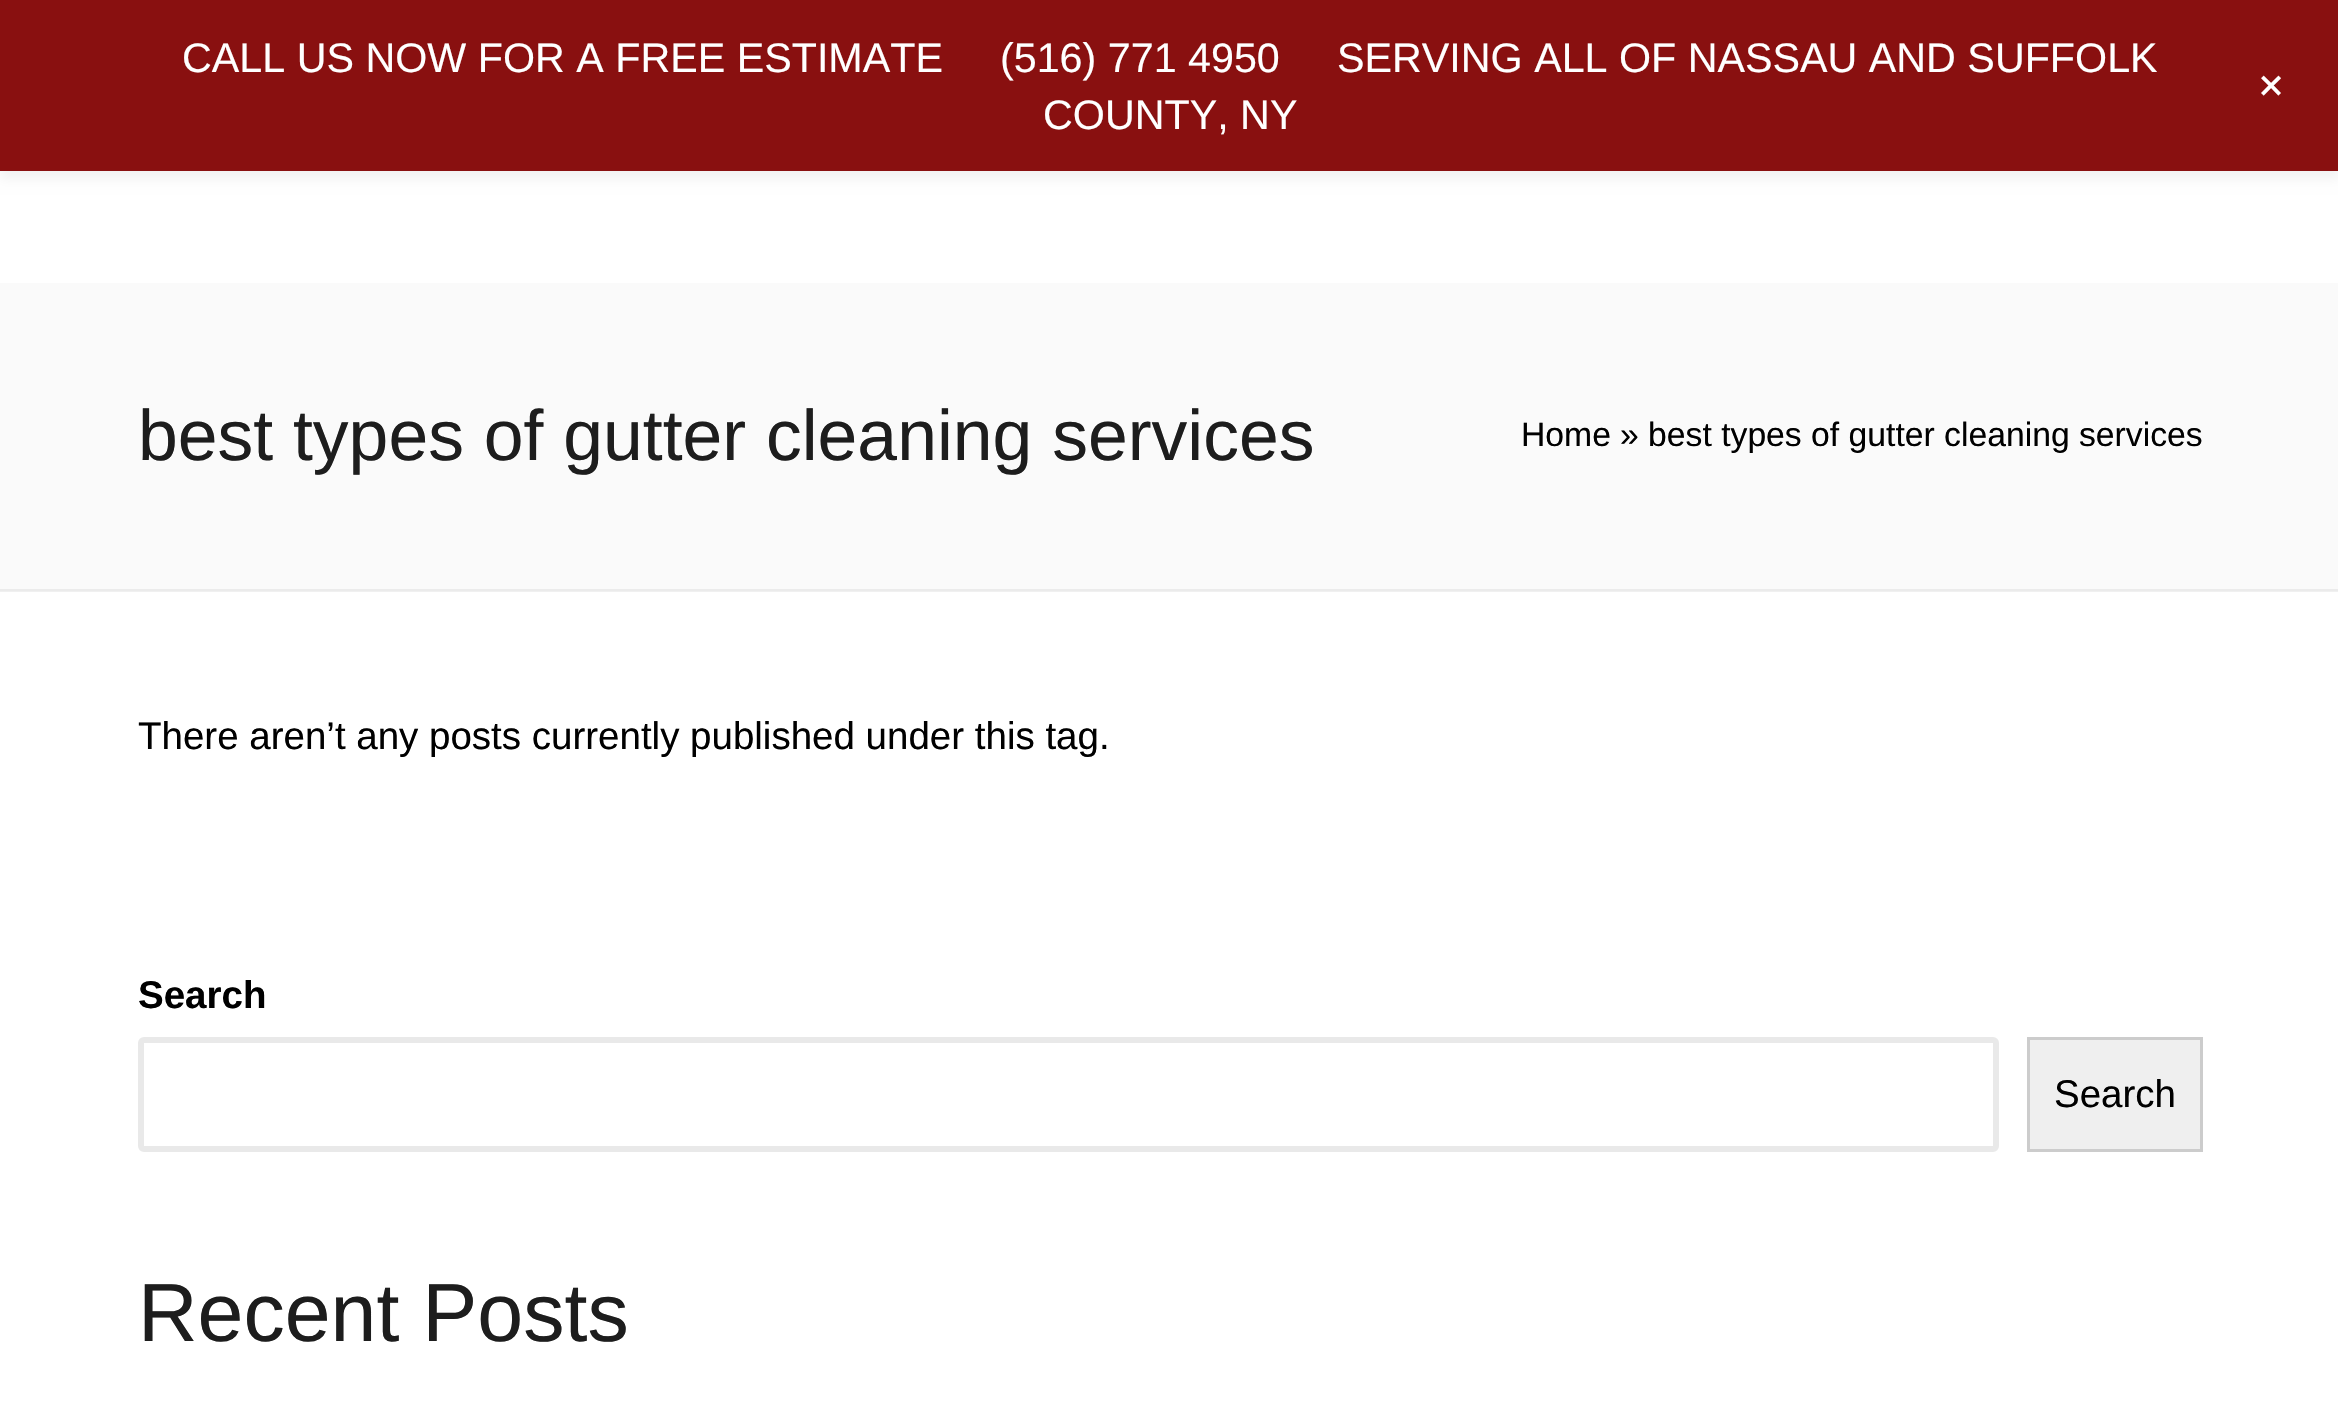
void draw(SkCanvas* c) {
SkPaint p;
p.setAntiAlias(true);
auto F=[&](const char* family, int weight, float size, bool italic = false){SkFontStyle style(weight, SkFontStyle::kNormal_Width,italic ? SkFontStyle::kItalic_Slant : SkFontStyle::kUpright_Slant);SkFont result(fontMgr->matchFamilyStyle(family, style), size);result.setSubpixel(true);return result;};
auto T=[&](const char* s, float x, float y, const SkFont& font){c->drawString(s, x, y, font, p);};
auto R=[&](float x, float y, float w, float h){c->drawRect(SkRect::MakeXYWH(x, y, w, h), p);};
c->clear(0xffffffff);
p.setColor(0xfff0f0f0);
R(0,591,2338,1);
p.setColor(0x0d000000);
p.setMaskFilter(SkMaskFilter::MakeBlur(kNormal_SkBlurStyle, 5.5));
c->drawRect(SkRect::MakeXYWH(0,8,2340,171),p);
p.setMaskFilter(nullptr);
p.setColor(0xff891010);
R(0,0,2338,171);
auto f1 = F("Liberation Sans",400,41.25);
p.setColor(0xffffffff);
T("CALL US NOW FOR A FREE ESTIMATE",182,72,f1);
T("(516) 771 4950",1000,72,f1);
T("SERVING ALL OF NASSAU AND SUFFOLK",1337,72,f1);
T("COUNTY, NY",1043,129,f1);
auto f2 = F("Liberation Sans",400,50);
c->save();
c->rotate(45,2249,87);
T("+",2249,87,f2);
c->restore();
p.setColor(0xfffafafa);
R(0,283,2338,306);
p.setColor(0xffebebeb);
R(0,589,2338,2);
auto f3 = F("Liberation Sans",400,71.5);
p.setColor(0xff1d1d1d);
T("best types of gutter cleaning services",138,460,f3);
auto f4 = F("Liberation Sans",400,33.7);
p.setColor(0xff000000);
T("Home",1521,446,f4);
T("» best types of gutter cleaning services",1620,446,f4);
auto f5 = F("Liberation Sans",400,38.5);
T("There aren’t any posts currently published under this tag.",138,749,f5);
auto f6 = F("Liberation Sans",700,38.5);
T("Search",138,1008,f6);
p.setStroke(true);
p.setStrokeWidth(6);
p.setColor(0xffe9e9e9);
c->drawRoundRect(SkRect::MakeXYWH(141,1040,1855,109),3,3,p);
p.setStroke(false);
p.setColor(0xffefefef);
c->drawRect(SkRect::MakeXYWH(2028.5,1038.5,173,112),p);
p.setStroke(true);
p.setStrokeWidth(3);
p.setColor(0xffcccccc);
c->drawRect(SkRect::MakeXYWH(2028.5,1038.5,173,112),p);
p.setStroke(false);
p.setColor(0xff000000);
T("Search",2054,1107,f5);
auto f7 = F("Liberation Sans",400,82.5);
p.setColor(0xff1d1d1d);
T("Recent Posts",138,1341,f7);
}
